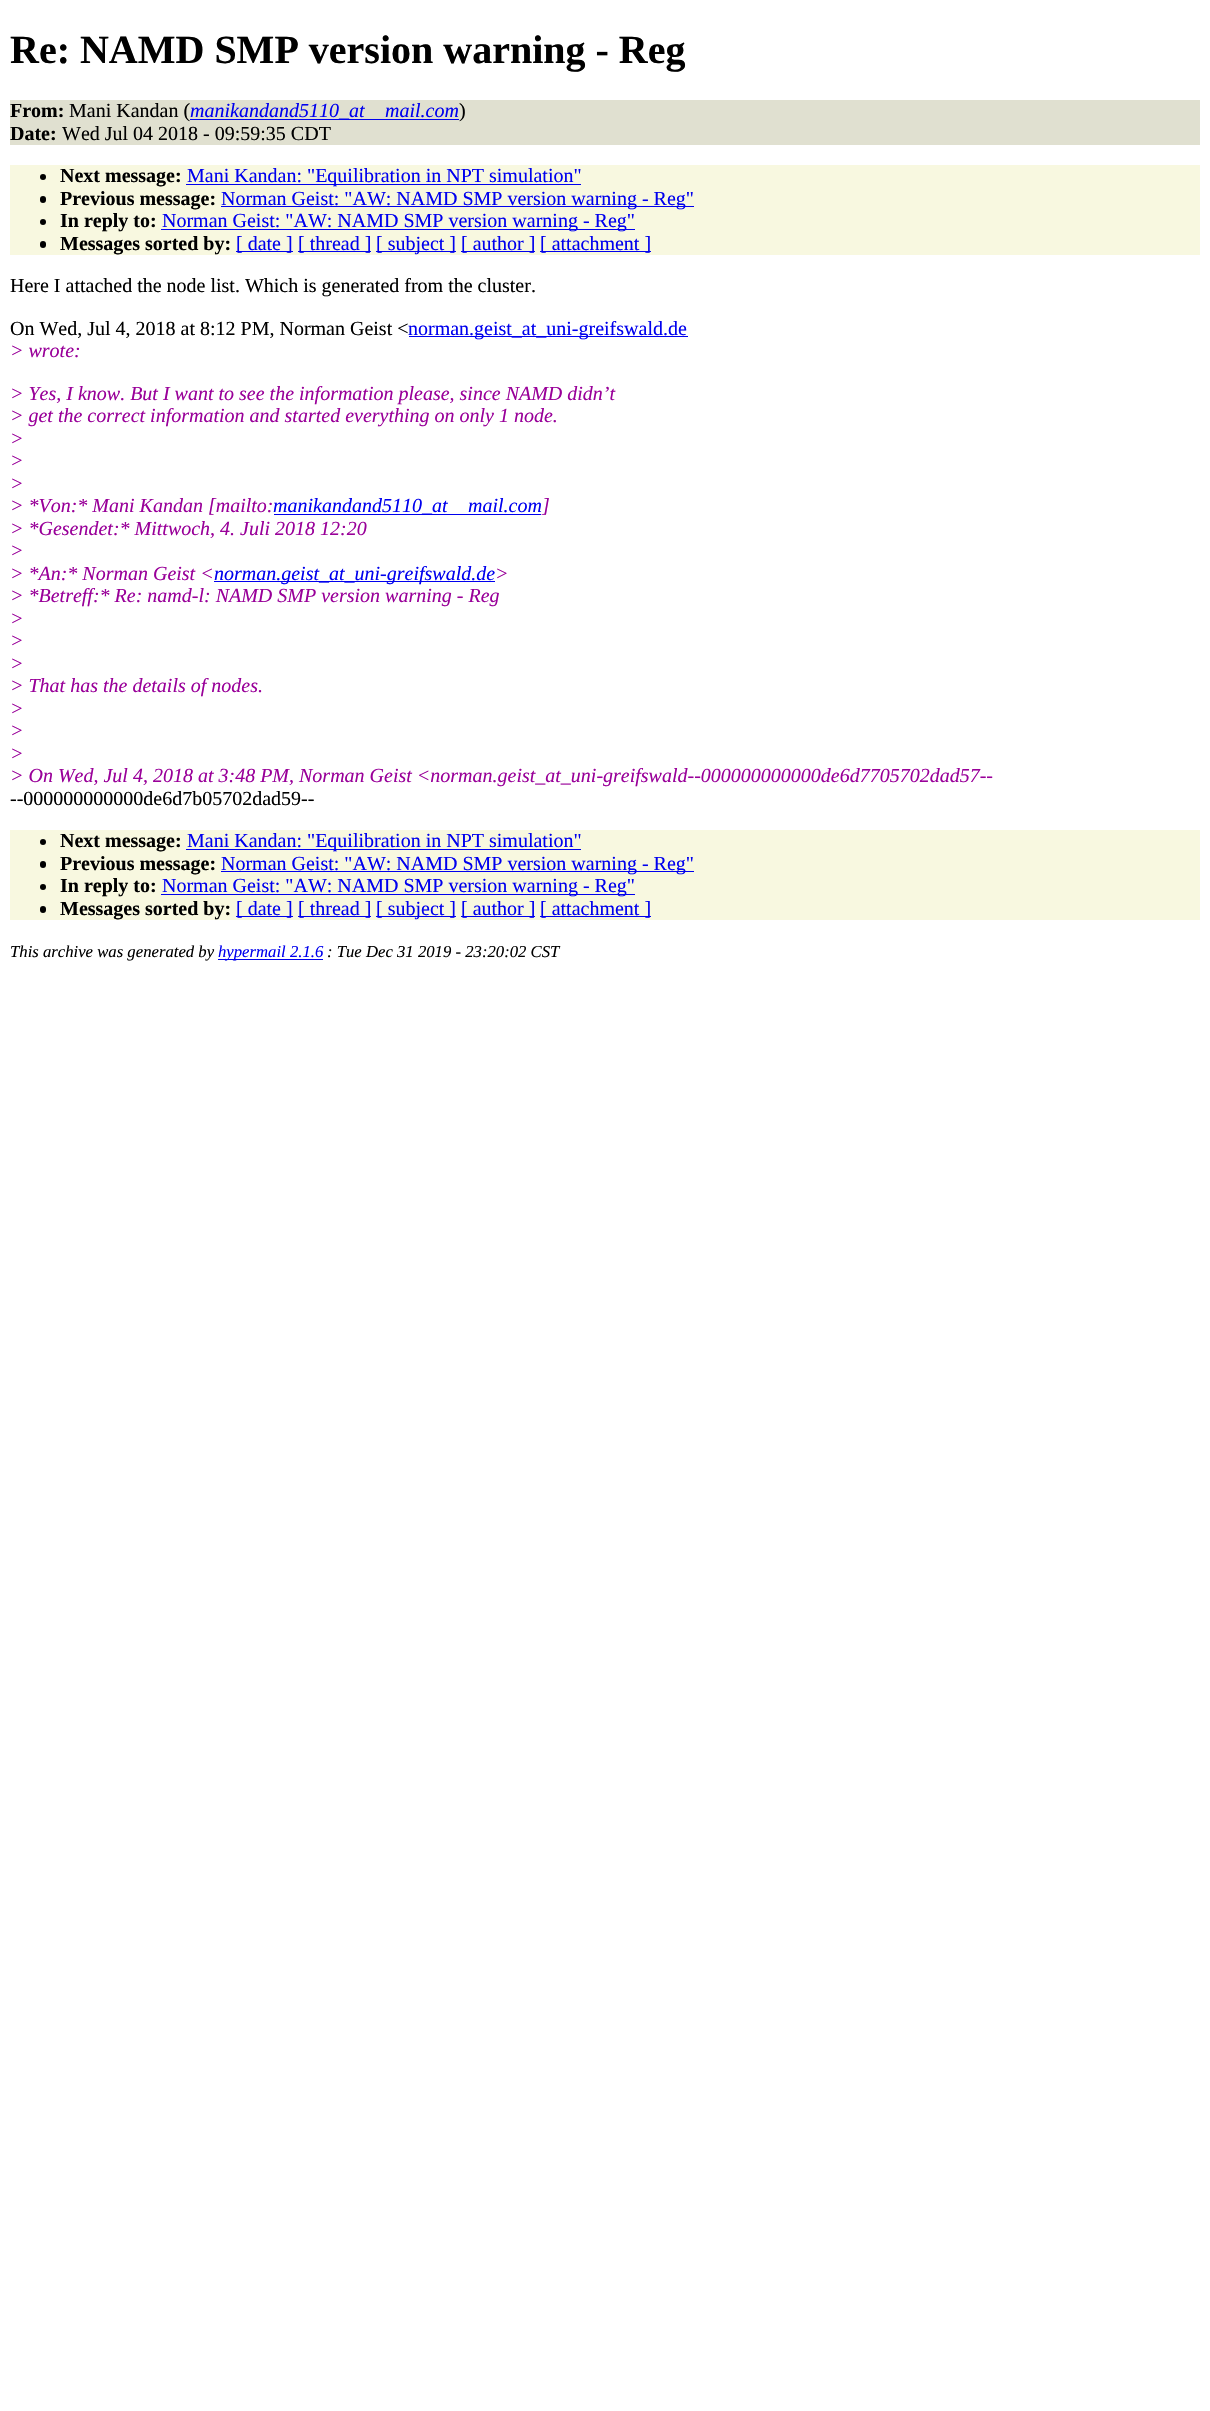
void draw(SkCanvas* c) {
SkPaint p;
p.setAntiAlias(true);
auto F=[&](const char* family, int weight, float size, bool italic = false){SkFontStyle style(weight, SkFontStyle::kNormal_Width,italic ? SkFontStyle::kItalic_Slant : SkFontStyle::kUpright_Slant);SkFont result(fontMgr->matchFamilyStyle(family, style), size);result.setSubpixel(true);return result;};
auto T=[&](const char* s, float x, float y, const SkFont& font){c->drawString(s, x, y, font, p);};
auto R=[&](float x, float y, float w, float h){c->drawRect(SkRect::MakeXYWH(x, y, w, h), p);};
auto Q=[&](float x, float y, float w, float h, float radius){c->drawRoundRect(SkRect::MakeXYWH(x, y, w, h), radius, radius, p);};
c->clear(0xffffffff);
auto f1 = F("Liberation Serif",700,40);
p.setColor(0xff000000);
T("Re: NAMD SMP version warning - Reg",10,63,f1);
p.setColor(0xffe0e0d0);
R(10,100,1190,45);
auto f2 = F("Liberation Serif",700,20);
p.setColor(0xff000000);
T("From:",10,117,f2);
auto f3 = F("Liberation Serif",400,20);
T("Mani Kandan (",69,117,f3);
p.setColor(0xff0000ee);
R(190,119,269,1);
auto f4 = F("Liberation Serif",400,20,true);
T("manikandand5110_at",190,117,f4);
T("mail.com",385,117,f4);
p.setColor(0xff000000);
T(")",459,117,f3);
T("Date:",10,140,f2);
T("Wed Jul 04 2018 - 09:59:35 CDT",62,140,f3);
p.setColor(0xfff8f8e0);
R(10,165,1190,90);
p.setColor(0xff000000);
c->drawCircle(43,177,3,p);
T("Next message:",60,182,f2);
p.setColor(0xff0000ee);
R(186,184,395,1);
T("Mani Kandan: \"Equilibration in NPT simulation\"",187,182,f3);
p.setColor(0xff000000);
Q(40,196,6,7,3);
T("Previous message:",60,205,f2);
p.setColor(0xff0000ee);
R(221,206,473,1);
T("Norman Geist: \"AW: NAMD SMP version warning - Reg\"",221,205,f3);
p.setColor(0xff000000);
c->drawCircle(43,222,3,p);
T("In reply to:",60,227,f2);
p.setColor(0xff0000ee);
R(161,229,474,1);
T("Norman Geist: \"AW: NAMD SMP version warning - Reg\"",162,227,f3);
p.setColor(0xff000000);
Q(40,241,6,7,3);
T("Messages sorted by:",60,250,f2);
p.setColor(0xff0000ee);
R(236,251,57,1);
T("[ date ]",236,250,f3);
R(298,251,73,1);
T("[ thread ]",298,250,f3);
R(376,251,80,1);
T("[ subject ]",376,250,f3);
R(461,251,74,1);
T("[ author ]",461,250,f3);
R(540,251,111,1);
T("[ attachment ]",540,250,f3);
p.setColor(0xff000000);
T("Here I attached the node list. Which is generated from the cluster.",10,292,f3);
T("On Wed, Jul 4, 2018 at 8:12 PM, Norman Geist <",10,335,f3);
p.setColor(0xff0000ee);
R(409,336,279,1);
T("norman.geist_at_uni-greifswald.de",408,335,f3);
p.setColor(0xff990099);
T("> wrote:",10,357,f4);
T("> Yes, I know. But I want to see the information please, since NAMD didn’t",10,400,f4);
T("> get the correct information and started everything on only 1 node.",10,422,f4);
T(">",10,445,f4);
T(">",10,467,f4);
T(">",10,490,f4);
T("> *Von:* Mani Kandan [mailto:",10,512,f4);
p.setColor(0xff0000ee);
R(274,514,267,1);
T("manikandand5110_at",273,512,f4);
T("mail.com",468,512,f4);
p.setColor(0xff990099);
T("]",542,512,f4);
T("> *Gesendet:* Mittwoch, 4. Juli 2018 12:20",10,535,f4);
T(">",10,557,f4);
T("> *An:* Norman Geist <",10,580,f4);
p.setColor(0xff0000ee);
R(214,581,281,1);
T("norman.geist_at_uni-greifswald.de",214,580,f4);
p.setColor(0xff990099);
T(">",495,580,f4);
T("> *Betreff:* Re: namd-l: NAMD SMP version warning - Reg",10,602,f4);
T(">",10,625,f4);
T(">",10,647,f4);
T(">",10,670,f4);
T("> That has the details of nodes.",10,692,f4);
T(">",10,715,f4);
T(">",10,737,f4);
T(">",10,760,f4);
T("> On Wed, Jul 4, 2018 at 3:48 PM, Norman Geist <norman.geist_at_uni-greifswald--000000000000de6d7705702dad57--",10,782,f4);
p.setColor(0xff000000);
T("--000000000000de6d7b05702dad59--",10,805,f3);
p.setColor(0xfff8f8e0);
R(10,830,1190,90);
p.setColor(0xff000000);
c->drawCircle(43,842,3,p);
T("Next message:",60,847,f2);
p.setColor(0xff0000ee);
R(186,849,395,1);
T("Mani Kandan: \"Equilibration in NPT simulation\"",187,847,f3);
p.setColor(0xff000000);
Q(40,861,6,7,3);
T("Previous message:",60,870,f2);
p.setColor(0xff0000ee);
R(221,871,473,1);
T("Norman Geist: \"AW: NAMD SMP version warning - Reg\"",221,870,f3);
p.setColor(0xff000000);
c->drawCircle(43,887,3,p);
T("In reply to:",60,892,f2);
p.setColor(0xff0000ee);
R(161,894,474,1);
T("Norman Geist: \"AW: NAMD SMP version warning - Reg\"",162,892,f3);
p.setColor(0xff000000);
Q(40,906,6,7,3);
T("Messages sorted by:",60,915,f2);
p.setColor(0xff0000ee);
R(236,916,57,1);
T("[ date ]",236,915,f3);
R(298,916,73,1);
T("[ thread ]",298,915,f3);
R(376,916,80,1);
T("[ subject ]",376,915,f3);
R(461,916,74,1);
T("[ author ]",461,915,f3);
R(540,916,111,1);
T("[ attachment ]",540,915,f3);
auto f5 = F("Liberation Serif",400,16.7,true);
p.setColor(0xff000000);
T("This archive was generated by",10,957,f5);
p.setColor(0xff0000ee);
R(218,959,105,1);
T("hypermail 2.1.6",218,957,f5);
p.setColor(0xff000000);
T(": Tue Dec 31 2019 - 23:20:02 CST",327,957,f5);
}
